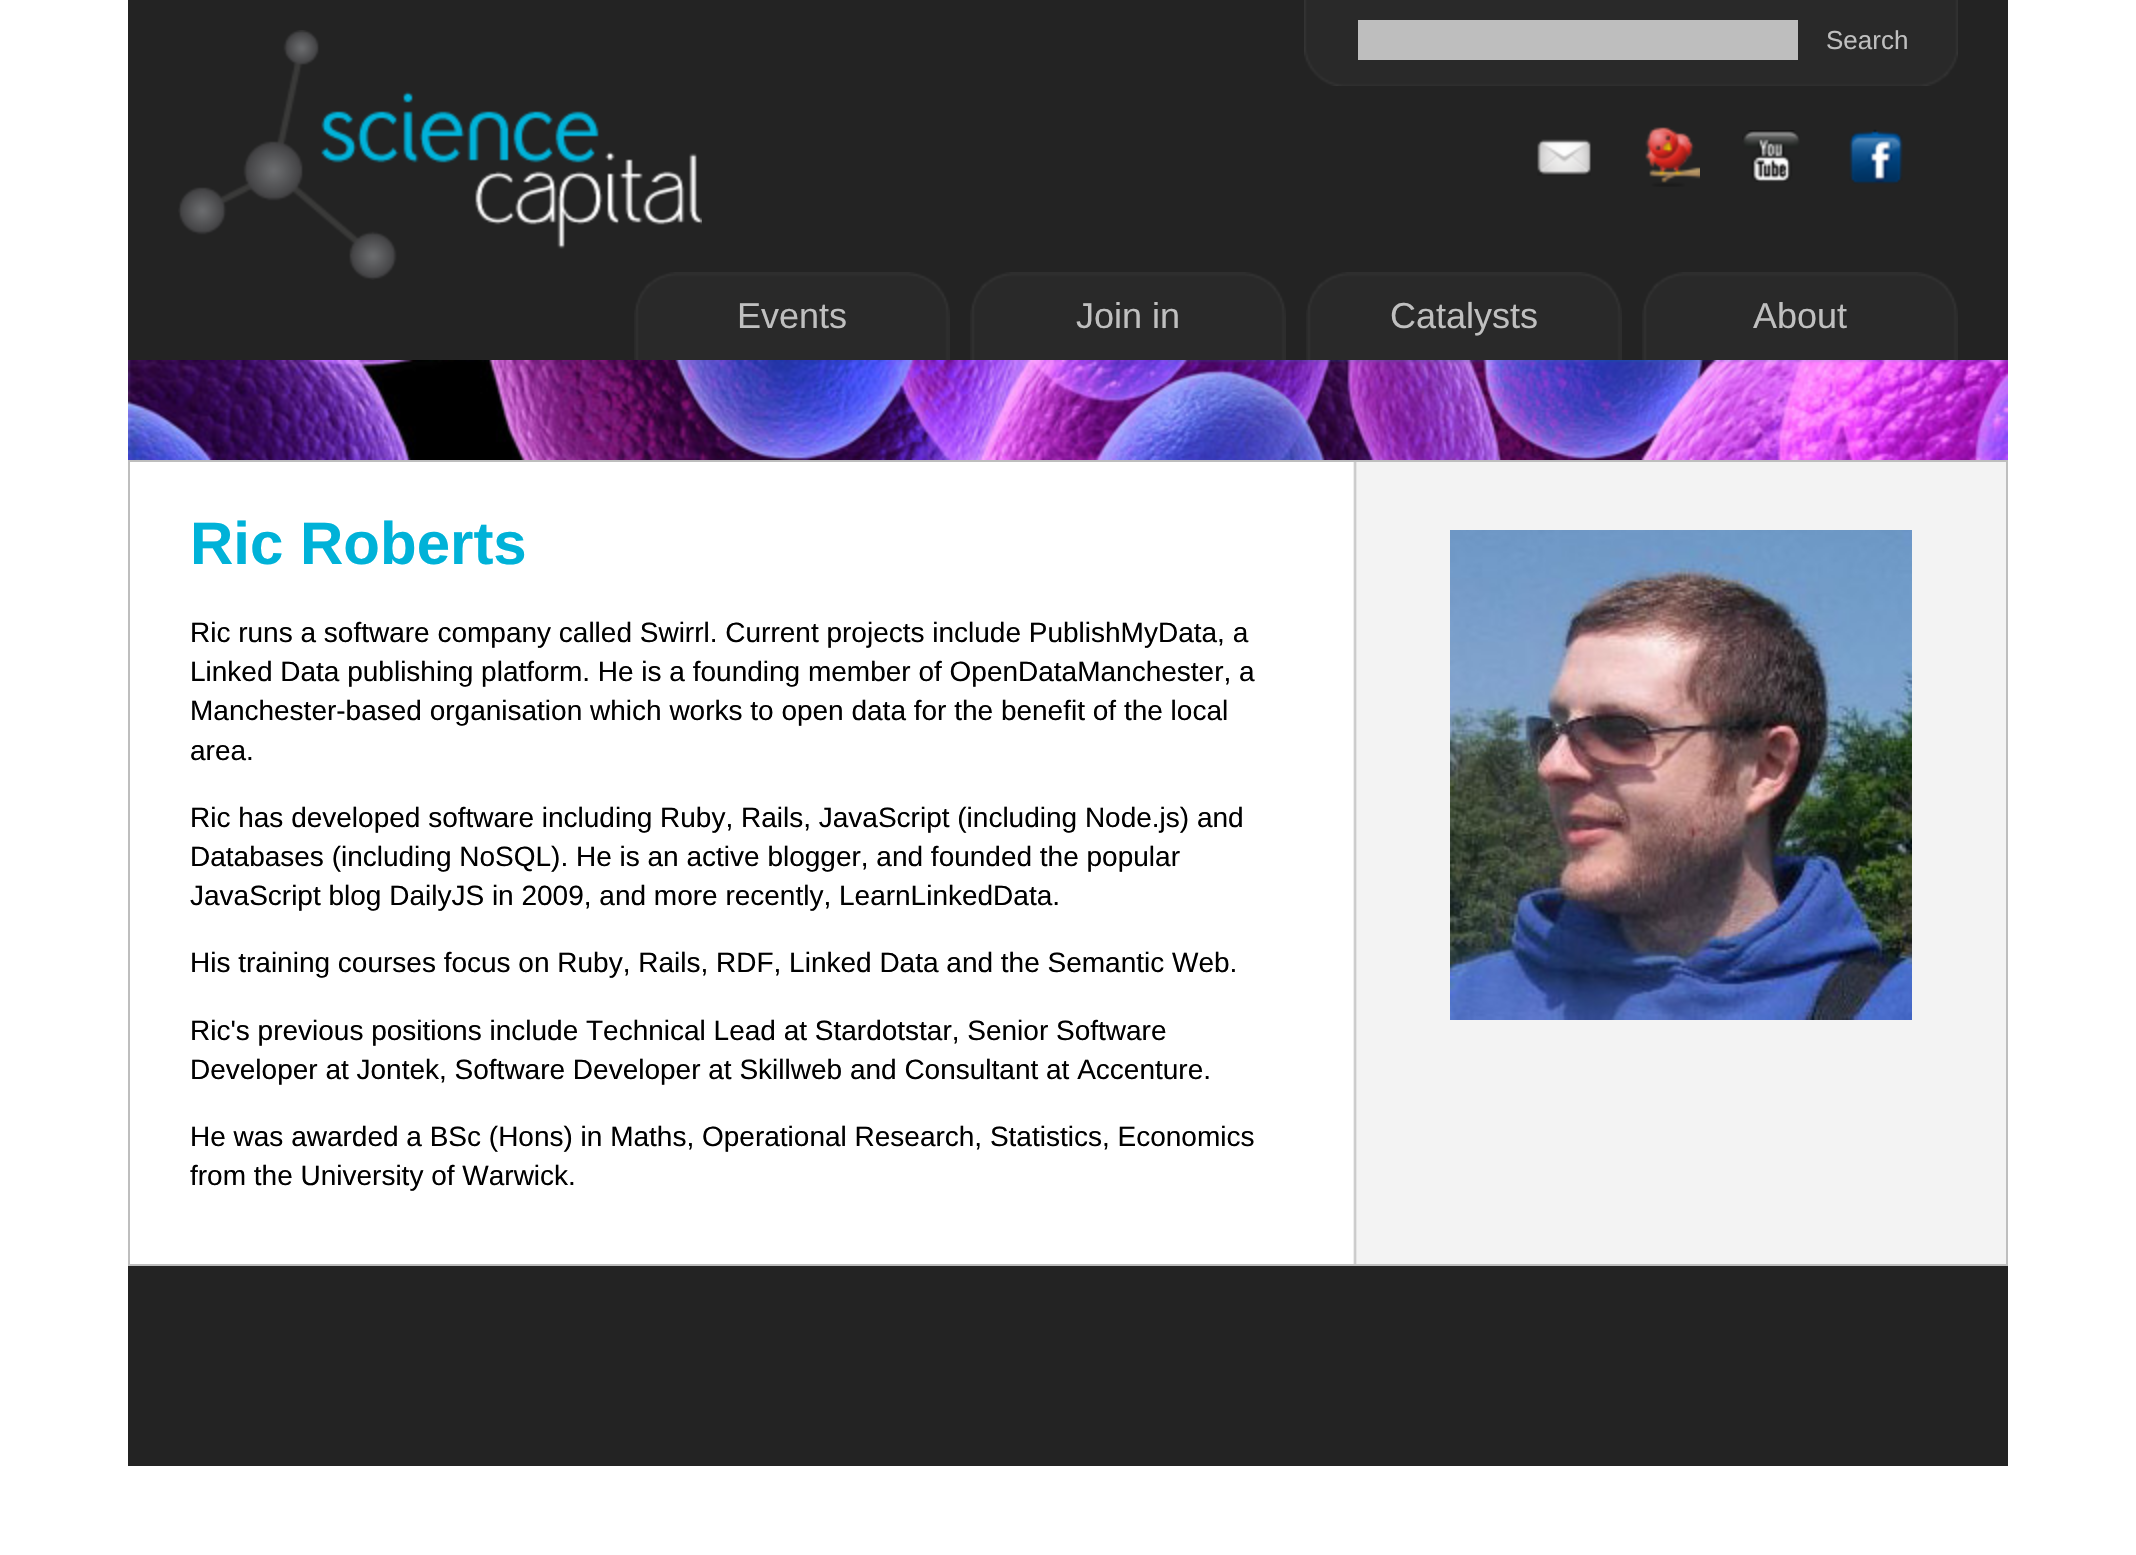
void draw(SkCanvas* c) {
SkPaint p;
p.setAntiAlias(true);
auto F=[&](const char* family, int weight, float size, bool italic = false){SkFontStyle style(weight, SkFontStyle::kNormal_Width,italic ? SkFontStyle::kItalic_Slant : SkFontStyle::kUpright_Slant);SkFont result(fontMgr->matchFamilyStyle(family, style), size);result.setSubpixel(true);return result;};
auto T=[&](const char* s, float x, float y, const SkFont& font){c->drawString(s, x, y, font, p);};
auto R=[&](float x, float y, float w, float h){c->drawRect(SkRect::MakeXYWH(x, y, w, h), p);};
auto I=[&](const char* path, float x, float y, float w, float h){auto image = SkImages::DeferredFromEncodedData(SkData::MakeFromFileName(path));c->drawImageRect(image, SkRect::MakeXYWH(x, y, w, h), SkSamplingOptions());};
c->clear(0xffffffff);
p.setColor(0xff232323);
R(128,0,1880,360);
I("1.png",178,30,524,250);
I("2.png",1304,0,654,86);
p.setColor(0xffbebebe);
R(1358,20,440,40);
auto f1 = F("Liberation Sans",400,26);
p.setColor(0xffbfbfbf);
T("Search",1826,49,f1);
I("3.png",1537,139,54,37);
I("4.png",1645,127,55,60);
I("5.png",1742,130,58,52);
I("6.png",1849,129,54,55);
I("7.png",634,272,316,88);
auto f2 = F("Liberation Sans",400,36);
T("Events",737,328,f2);
I("7.png",970,272,316,88);
T("Join in",1076,328,f2);
I("7.png",1306,272,316,88);
T("Catalysts",1390,328,f2);
I("7.png",1642,272,316,88);
T("About",1753,328,f2);
I("8.png",128,360,1880,100);
I("9.png",1353,462,653,802);
p.setStroke(true);
p.setStrokeWidth(2);
p.setColor(0xffbebebe);
c->drawRect(SkRect::MakeXYWH(129,461,1878,804),p);
auto f3 = F("Liberation Sans",700,60);
p.setStroke(false);
p.setColor(0xff00b2d8);
T("Ric Roberts",190,564,f3);
auto f4 = F("Liberation Sans",400,28);
p.setColor(0xff000000);
T("Ric runs a software company called Swirrl. Current projects include PublishMyData, a",190,642,f4);
T("Linked Data publishing platform. He is a founding member of OpenDataManchester, a",190,681,f4);
T("Manchester-based organisation which works to open data for the benefit of the local",190,720,f4);
T("area.",190,760,f4);
T("Ric has developed software including Ruby, Rails, JavaScript (including Node.js) and",190,827,f4);
T("Databases (including NoSQL). He is an active blogger, and founded the popular",190,866,f4);
T("JavaScript blog DailyJS in 2009, and more recently, LearnLinkedData.",190,905,f4);
T("His training courses focus on Ruby, Rails, RDF, Linked Data and the Semantic Web.",190,972,f4);
T("Ric's previous positions include Technical Lead at Stardotstar, Senior Software",190,1040,f4);
T("Developer at Jontek, Software Developer at Skillweb and Consultant at Accenture.",190,1079,f4);
T("He was awarded a BSc (Hons) in Maths, Operational Research, Statistics, Economics",190,1146,f4);
T("from the University of Warwick.",190,1185,f4);
I("10.png",1450,530,462,490);
p.setColor(0xff232323);
R(128,1266,1880,200);
}
